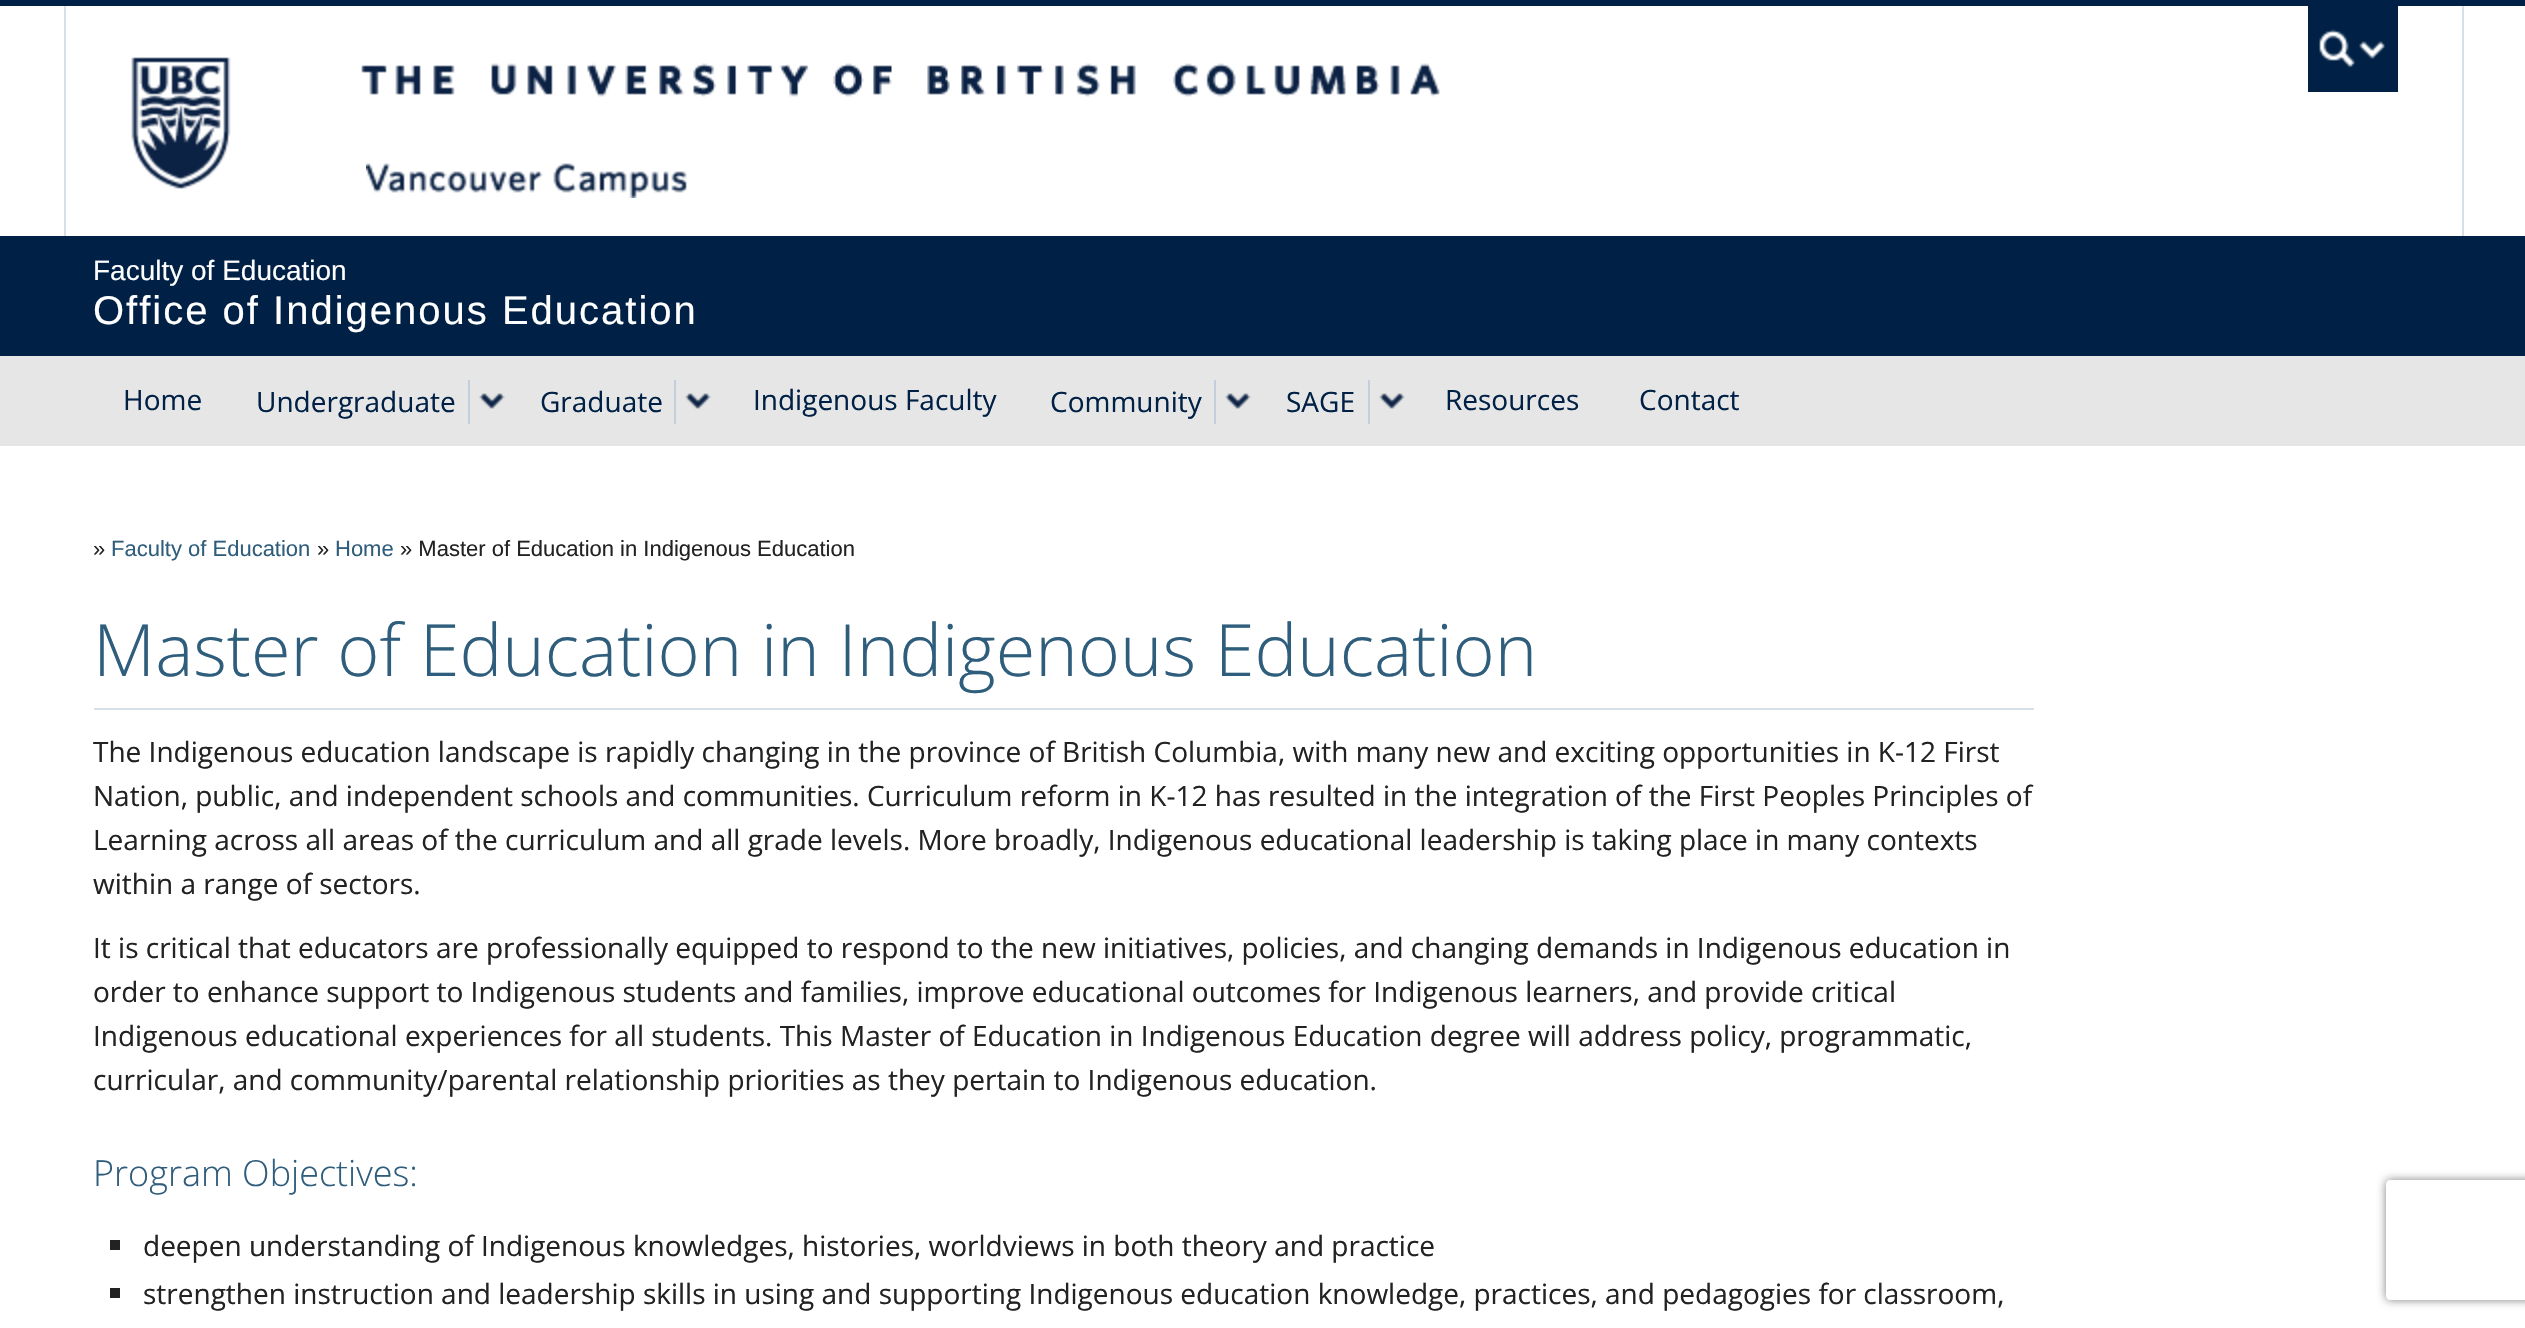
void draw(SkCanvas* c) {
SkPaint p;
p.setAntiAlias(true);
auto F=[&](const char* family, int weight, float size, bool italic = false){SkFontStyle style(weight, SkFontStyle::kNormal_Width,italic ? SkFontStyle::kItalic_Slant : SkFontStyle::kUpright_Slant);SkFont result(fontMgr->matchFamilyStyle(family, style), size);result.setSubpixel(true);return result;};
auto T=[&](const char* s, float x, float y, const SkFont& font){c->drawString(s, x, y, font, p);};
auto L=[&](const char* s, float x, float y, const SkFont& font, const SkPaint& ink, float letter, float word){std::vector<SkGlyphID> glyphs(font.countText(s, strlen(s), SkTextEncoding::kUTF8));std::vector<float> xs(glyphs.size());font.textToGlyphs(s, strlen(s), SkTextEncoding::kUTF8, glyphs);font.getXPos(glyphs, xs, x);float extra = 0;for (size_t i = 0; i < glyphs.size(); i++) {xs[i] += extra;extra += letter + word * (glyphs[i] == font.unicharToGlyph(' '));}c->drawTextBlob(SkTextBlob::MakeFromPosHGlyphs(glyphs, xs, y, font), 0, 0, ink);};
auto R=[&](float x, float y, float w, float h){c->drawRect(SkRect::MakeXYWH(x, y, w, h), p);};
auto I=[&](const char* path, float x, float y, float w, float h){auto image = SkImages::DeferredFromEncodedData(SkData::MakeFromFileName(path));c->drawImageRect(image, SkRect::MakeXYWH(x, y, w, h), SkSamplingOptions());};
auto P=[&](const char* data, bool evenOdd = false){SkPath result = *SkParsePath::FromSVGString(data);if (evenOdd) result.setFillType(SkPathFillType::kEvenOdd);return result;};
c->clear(0xffffffff);
p.setColor(0xff002145);
R(0,0,2525,6);
p.setColor(0xffd7e0e7);
R(2462,6,2,230);
R(64,6,2,230);
I("1.png",131,57,100,132);
I("2.png",361,63,1079,34);
p.setColor(0xff002145);
R(2308,6,90,86);
I("3.png",2319,29,66,39);
I("4.png",366,163,321,35);
R(0,236,2525,120);
auto f1 = F("Liberation Sans",400,28);
p.setColor(0xffffffff);
T("Faculty of Education",93,280,f1);
auto f2 = F("Liberation Sans",400,40);
L("Office of Indigenous Education",93,324,f2,p,2,0);
p.setColor(0xffe6e6e6);
R(0,356,2525,90);
auto f3 = F("Open Sans",400,28);
p.setColor(0xff002145);
T("Home",123,410,f3);
T("Undergraduate",256,412,f3);
p.setColor(0xffc3d0db);
R(468,380,2,44);
I("5.png",479,393,26,16);
p.setColor(0xff002145);
T("Graduate",540,412,f3);
p.setColor(0xffc3d0db);
R(674,380,2,44);
I("5.png",685,393,26,16);
p.setColor(0xff002145);
T("Indigenous Faculty",753,410,f3);
T("Community",1050,412,f3);
p.setColor(0xffc3d0db);
R(1214,380,2,44);
I("5.png",1225,393,26,16);
p.setColor(0xff002145);
T("SAGE",1286,412,f3);
p.setColor(0xffc3d0db);
R(1368,380,2,44);
I("5.png",1379,393,26,16);
p.setColor(0xff002145);
T("Resources",1445,410,f3);
T("Contact",1639,410,f3);
auto f4 = F("Liberation Sans",400,22);
p.setColor(0xff222222);
T("»",93,556,f4);
p.setColor(0xff2f5d7c);
T("Faculty of Education",111,556,f4);
p.setColor(0xff222222);
T("»",317,556,f4);
p.setColor(0xff2f5d7c);
T("Home",335,556,f4);
p.setColor(0xff222222);
T("» Master of Education in Indigenous Education",400,556,f4);
p.setColor(0xffd7e0e7);
R(94,708,1940,2);
auto f5 = F("Open Sans",300,72);
p.setColor(0xff2f5d7c);
T("Master of Education in Indigenous Education",93,676,f5);
p.setColor(0xff222222);
T("The Indigenous education landscape is rapidly changing in the province of British Columbia, with many new and exciting opportunities in K-12 First",93,762,f3);
T("Nation, public, and independent schools and communities. Curriculum reform in K-12 has resulted in the integration of the First Peoples Principles of",93,806,f3);
T("Learning across all areas of the curriculum and all grade levels. More broadly, Indigenous educational leadership is taking place in many contexts",93,850,f3);
T("within a range of sectors.",93,894,f3);
T("It is critical that educators are professionally equipped to respond to the new initiatives, policies, and changing demands in Indigenous education in",93,958,f3);
T("order to enhance support to Indigenous students and families, improve educational outcomes for Indigenous learners, and provide critical",93,1002,f3);
T("Indigenous educational experiences for all students. This Master of Education in Indigenous Education degree will address policy, programmatic,",93,1046,f3);
T("curricular, and community/parental relationship priorities as they pertain to Indigenous education.",93,1090,f3);
auto f6 = F("Open Sans",300,36);
p.setColor(0xff2f5d7c);
T("Program Objectives:",93,1186,f6);
p.setColor(0xff222222);
R(110,1240,10,10);
T("deepen understanding of Indigenous knowledges, histories, worldviews in both theory and practice",143,1256,f3);
R(110,1288,10,10);
T("strengthen instruction and leadership skills in using and supporting Indigenous education knowledge, practices, and pedagogies for classroom,",143,1304,f3);
c->save();
c->clipPath(P("M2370 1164h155v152h-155zm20 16h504c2 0 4 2 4 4v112c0 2-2 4-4 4h-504c-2 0-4-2-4-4v-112c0-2 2-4 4-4z",true),true);
p.setColor(0xff808080);
p.setMaskFilter(SkMaskFilter::MakeBlur(kNormal_SkBlurStyle, 5));
c->drawRoundRect(SkRect::MakeXYWH(2386,1180,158,120),4,4,p);
p.setMaskFilter(nullptr);
c->restore();
}
